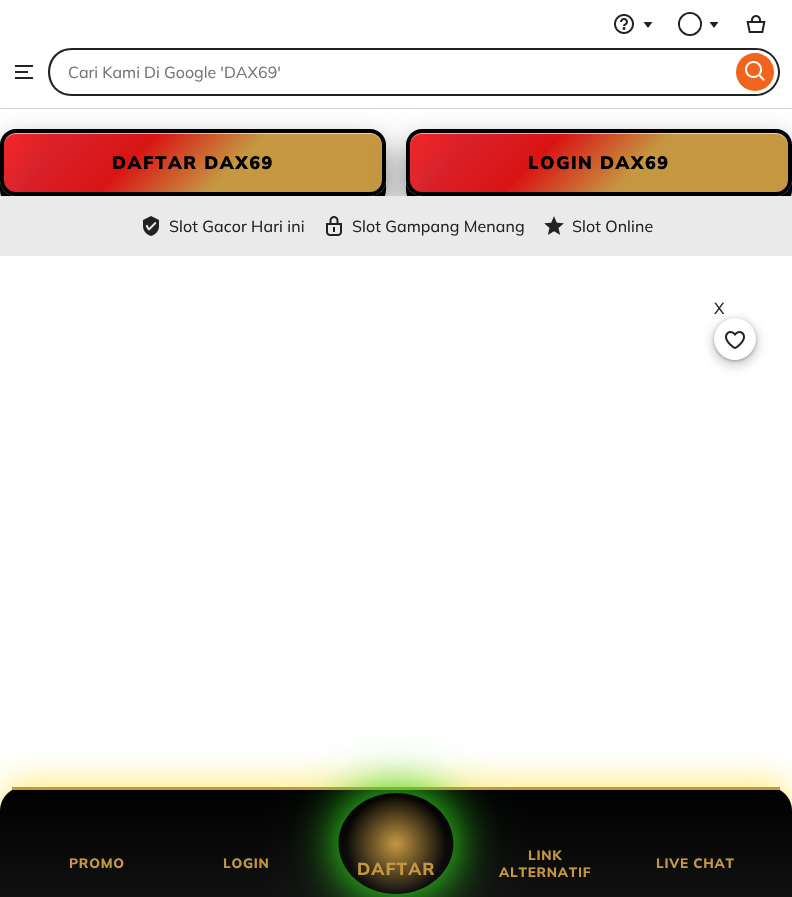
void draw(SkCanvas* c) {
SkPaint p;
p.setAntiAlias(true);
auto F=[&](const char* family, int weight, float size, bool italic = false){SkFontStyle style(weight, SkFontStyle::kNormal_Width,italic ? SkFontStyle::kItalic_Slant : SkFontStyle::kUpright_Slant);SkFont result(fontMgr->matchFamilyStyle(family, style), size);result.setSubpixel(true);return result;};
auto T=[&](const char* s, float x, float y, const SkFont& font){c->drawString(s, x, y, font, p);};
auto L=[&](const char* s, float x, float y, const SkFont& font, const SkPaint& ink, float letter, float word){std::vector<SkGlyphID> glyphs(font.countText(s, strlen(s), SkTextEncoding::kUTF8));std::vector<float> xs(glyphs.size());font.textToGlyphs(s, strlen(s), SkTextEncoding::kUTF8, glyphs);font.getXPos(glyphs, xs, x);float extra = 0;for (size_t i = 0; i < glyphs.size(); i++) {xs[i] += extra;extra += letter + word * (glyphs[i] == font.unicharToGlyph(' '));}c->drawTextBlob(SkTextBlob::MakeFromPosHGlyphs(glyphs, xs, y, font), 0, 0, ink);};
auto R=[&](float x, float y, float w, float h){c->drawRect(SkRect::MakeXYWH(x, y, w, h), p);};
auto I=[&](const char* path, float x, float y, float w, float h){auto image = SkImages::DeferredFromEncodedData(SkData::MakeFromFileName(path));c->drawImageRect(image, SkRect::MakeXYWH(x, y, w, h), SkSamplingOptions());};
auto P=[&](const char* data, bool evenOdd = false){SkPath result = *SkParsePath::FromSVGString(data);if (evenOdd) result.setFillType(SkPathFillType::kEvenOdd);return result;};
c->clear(0xffffffff);
p.setColor(0x80000000);
p.setMaskFilter(SkMaskFilter::MakeBlur(kNormal_SkBlurStyle, 15));
c->drawRoundRect(SkRect::MakeXYWH(0,144,386,67),16,16,p);
p.setMaskFilter(nullptr);
p.setColor(0xff000000);
c->drawPath(P("M0 180v10c0 9 7 16 16 16h354c9 0 16-7 16-16v-10c0 9-7 16-16 16h-354c-9 0-16-7-16-16z"),p);
c->save();
c->clipPath(P("M16 129h354c9 0 16 7 16 16v35c0 9-7 16-16 16h-354c-9 0-16-7-16-16v-35c0-9 7-16 16-16z"),true);
{
const SkColor colors[] = {0xfff21515,0xffd9212a,0xffd91414,0xffc59741,0xffc59741};
const float stops[] = {0,.15,.35,.6,1};
const SkPoint ends[] = {{84,53}, {302,272}};
p.setShader(SkGradientShader::MakeLinear(ends, colors, stops, 5, SkTileMode::kClamp));
p.setAlpha(255);
}
R(4,133,378,59);
c->restore();
p.setShader(nullptr);
p.setColor(0x99ffffff);
c->drawPath(P("M16 134h354c7 0 12 5 12 12v-1c0-7-5-12-12-12h-354c-7 0-12 5-12 12v1c0-7 5-12 12-12z"),p);
p.setStroke(true);
p.setStrokeWidth(4);
p.setColor(0xff000000);
c->drawRoundRect(SkRect::MakeXYWH(2,131,382,63),14,14,p);
p.setStroke(false);
p.setColor(0x80000000);
p.setMaskFilter(SkMaskFilter::MakeBlur(kNormal_SkBlurStyle, 15));
c->drawRoundRect(SkRect::MakeXYWH(406,144,386,67),16,16,p);
p.setMaskFilter(nullptr);
p.setColor(0xffd3d3d3);
R(0,108,792,1);
I("1.png",614,14,20,20);
p.setColor(0xff222222);
c->drawPath(P("M652.5 22l-4.5 6l-4.5-6z"),p);
p.setStroke(true);
p.setStrokeWidth(2);
c->drawCircle(690,24,11,p);
p.setStrokeWidth(1);
p.setColor(0xffffffff);
c->drawCircle(690,24,9.5,p);
p.setStroke(false);
p.setColor(0xff222222);
c->drawPath(P("M718.5 22l-4.5 6l-4.5-6z"),p);
I("2.png",746,15,20,18);
I("3.png",15,65,18,14);
c->drawPath(P("M72 48h659v48h-659c-32 0-32-48 0-48zm0 2h659v44h-659c-29 0-29-44 0-44z",true),p);
auto f1 = F("Mulish",400,16);
p.setColor(0xff757575);
T("Cari Kami Di Google 'DAX69'",68,78,f1);
p.setColor(0xff222222);
c->drawPath(P("M731 48h25c13 0 24 11 24 24c0 13-11 24-24 24h-25zm0 2h25c12 0 22 10 22 22c0 12-10 22-22 22h-25z",true),p);
p.setColor(0xfff1641e);
c->drawCircle(755,72,19,p);
I("4.png",745,61,20,20);
{
const SkColor colors[] = {0x00ffffff,0x1affffff,0xb3ffffff,0x1affffff,0x00ffffff};
const float stops[] = {0,.3,.5,.7,1};
const SkPoint ends[] = {{-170,76}, {27,190}};
p.setShader(SkGradientShader::MakeLinear(ends, colors, stops, 5, SkTileMode::kClamp));
p.setAlpha(255);
}
c->drawPath(P("M16 133h43l-34 59h-9c-7 0-12-5-12-12v-35c0-7 5-12 12-12z"),p);
auto f2 = F("Mulish",900,18);
p.setShader(nullptr);
p.setColor(0xff000000);
L("DAFTAR DAX69",112,169,f2,p,1.5,0);
c->drawPath(P("M406 180v10c0 9 7 16 16 16h354c9 0 16-7 16-16v-10c0 9-7 16-16 16h-354c-9 0-16-7-16-16z"),p);
c->save();
c->clipPath(P("M422 129h354c9 0 16 7 16 16v35c0 9-7 16-16 16h-354c-9 0-16-7-16-16v-35c0-9 7-16 16-16z"),true);
{
const SkColor colors[] = {0xfff21515,0xffd9212a,0xffd91414,0xffc59741,0xffc59741};
const float stops[] = {0,.15,.35,.6,1};
const SkPoint ends[] = {{490,53}, {708,272}};
p.setShader(SkGradientShader::MakeLinear(ends, colors, stops, 5, SkTileMode::kClamp));
p.setAlpha(255);
}
R(410,133,378,59);
c->restore();
p.setShader(nullptr);
p.setColor(0x99ffffff);
c->drawPath(P("M422 134h354c7 0 12 5 12 12v-1c0-7-5-12-12-12h-354c-7 0-12 5-12 12v1c0-7 5-12 12-12z"),p);
p.setStroke(true);
p.setStrokeWidth(4);
p.setColor(0xff000000);
c->drawRoundRect(SkRect::MakeXYWH(408,131,382,63),14,14,p);
p.setStroke(false);
{
const SkColor colors[] = {0x00ffffff,0x1affffff,0xb3ffffff,0x1affffff,0x00ffffff};
const float stops[] = {0,.3,.5,.7,1};
const SkPoint ends[] = {{236,76}, {433,190}};
p.setShader(SkGradientShader::MakeLinear(ends, colors, stops, 5, SkTileMode::kClamp));
p.setAlpha(255);
}
c->drawPath(P("M422 133h43l-34 59h-9c-7 0-12-5-12-12v-35c0-7 5-12 12-12z"),p);
p.setShader(nullptr);
p.setColor(0xff000000);
L("LOGIN DAX69",528,169,f2,p,1.5,0);
p.setColor(0xffeaeaea);
R(0,196,792,60);
I("5.png",143,216,16,20);
p.setColor(0xff222222);
L("Slot Gacor Hari ini",169,232,f1,p,.1,0);
I("6.png",326,216,16,20);
L("Slot Gampang Menang",352,232,f1,p,.1,0);
I("7.png",544,216,20,19);
L("Slot Online",572,232,f1,p,.1,0);
T("X",714,314,f1);
p.setColor(0x26000000);
p.setMaskFilter(SkMaskFilter::MakeBlur(kNormal_SkBlurStyle, 4));
c->drawRoundRect(SkRect::MakeXYWH(711,319,48,48),24,24,p);
p.setMaskFilter(nullptr);
p.setColor(0x4d000000);
p.setMaskFilter(SkMaskFilter::MakeBlur(kNormal_SkBlurStyle, 1.5));
c->drawRoundRect(SkRect::MakeXYWH(714,319,42,42),21,21,p);
p.setMaskFilter(nullptr);
p.setColor(0xffffffff);
c->drawCircle(735,339,20.5,p);
p.setStroke(true);
p.setStrokeWidth(1);
c->drawCircle(735,339,20.5,p);
I("8.png",725,331,20,18);
p.setStroke(false);
p.setColor(0x73ffd700);
p.setMaskFilter(SkMaskFilter::MakeBlur(kNormal_SkBlurStyle, 15));
c->drawRoundRect(SkRect::MakeXYWH(0,779,792,110),24,24,p);
p.setMaskFilter(nullptr);
c->save();
c->clipPath(P("M24 787h744c13.5 0 24 10.5 24 24v86h-792v-86c0-13.5 10.5-24 24-24z"),true);
{
const SkColor colors[] = {0xff000000,0xff111111};
const float stops[] = {0,1};
const SkPoint ends[] = {{396,790}, {396,897}};
p.setShader(SkGradientShader::MakeLinear(ends, colors, stops, 2, SkTileMode::kClamp));
p.setAlpha(255);
}
R(0,790,792,107);
c->restore();
p.setShader(nullptr);
p.setColor(0xffc59741);
R(12,787,768,3);
auto f3 = F("Mulish",800,13.5);
L("PROMO",69,868,f3,p,.75,0);
L("LOGIN",223,868,f3,p,.75,0);
c->save();
c->clipPath(P("M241 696h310v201h-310zm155 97c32 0 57.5 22.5 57.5 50.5c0 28-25.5 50.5-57.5 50.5c-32 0-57.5-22.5-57.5-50.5c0-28 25.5-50.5 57.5-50.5z",true),true);
p.setColor(0x992fdf20);
p.setMaskFilter(SkMaskFilter::MakeBlur(kNormal_SkBlurStyle, 32));
c->drawRoundRect(SkRect::MakeXYWH(338,793,116,101),50.5,50.5,p);
p.setMaskFilter(nullptr);
c->restore();
c->save();
c->clipPath(P("M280 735h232v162h-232zm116 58c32 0 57.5 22.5 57.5 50.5c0 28-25.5 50.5-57.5 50.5c-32 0-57.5-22.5-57.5-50.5c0-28 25.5-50.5 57.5-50.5z",true),true);
p.setColor(0xe630ce1a);
p.setMaskFilter(SkMaskFilter::MakeBlur(kNormal_SkBlurStyle, 19));
c->drawRoundRect(SkRect::MakeXYWH(338,793,116,101),50.5,50.5,p);
p.setMaskFilter(nullptr);
c->restore();
{
const SkColor colors[] = {0xffc59741,0x00c59741};
const float stops[] = {0,.65};
p.setShader(SkGradientShader::MakeRadial({396,844}, 77, colors, stops, 2, SkTileMode::kClamp));
p.setAlpha(255);
}
c->drawOval(SkRect::MakeXYWH(338.5,793,115,101),p);
auto f4 = F("Mulish",800,17.25);
p.setShader(nullptr);
p.setColor(0xffc59741);
L("DAFTAR",357,875,f4,p,1,0);
L("LINK",528,860,f3,p,.75,0);
L("ALTERNATIF",499,877,f3,p,.75,0);
L("LIVE CHAT",656,868,f3,p,.75,0);
}
